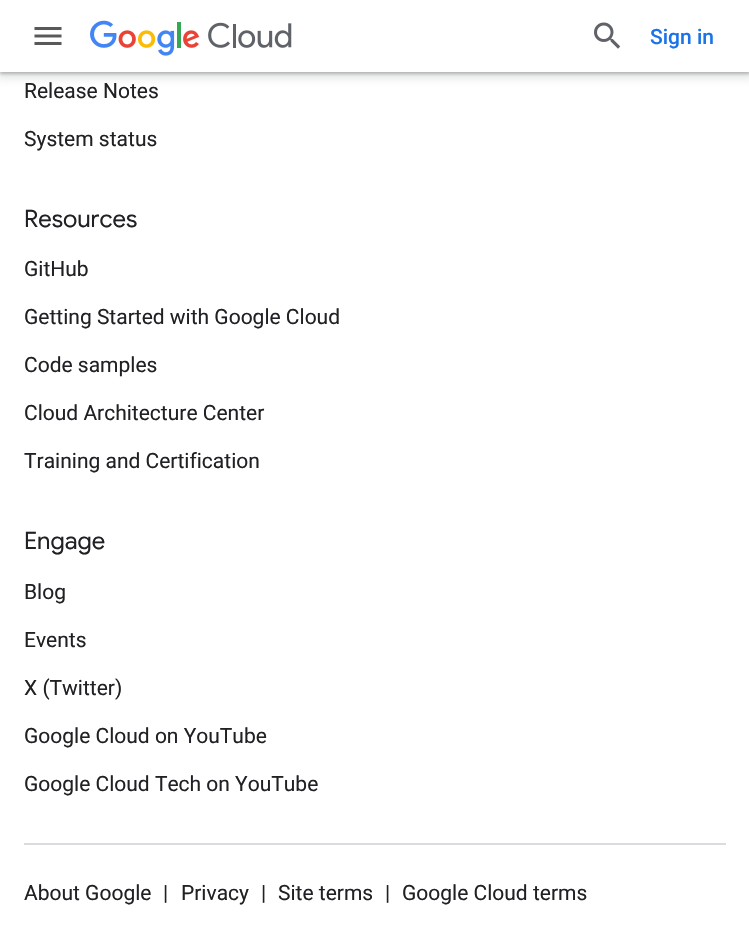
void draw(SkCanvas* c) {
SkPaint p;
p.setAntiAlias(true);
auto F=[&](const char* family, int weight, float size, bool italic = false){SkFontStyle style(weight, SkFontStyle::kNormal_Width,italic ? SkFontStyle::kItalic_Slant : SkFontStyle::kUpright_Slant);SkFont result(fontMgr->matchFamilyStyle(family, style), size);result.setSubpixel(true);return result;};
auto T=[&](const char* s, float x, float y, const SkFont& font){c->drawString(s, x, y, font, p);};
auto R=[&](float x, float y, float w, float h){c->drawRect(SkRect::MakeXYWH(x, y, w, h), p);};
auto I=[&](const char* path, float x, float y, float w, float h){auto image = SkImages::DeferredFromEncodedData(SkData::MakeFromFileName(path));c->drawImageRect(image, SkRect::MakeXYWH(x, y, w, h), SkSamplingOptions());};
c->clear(0xffffffff);
p.setColor(0x263c4043);
p.setMaskFilter(SkMaskFilter::MakeBlur(kNormal_SkBlurStyle, 4.5));
c->drawRect(SkRect::MakeXYWH(-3,-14,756,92),p);
p.setMaskFilter(nullptr);
p.setColor(0x4d3c4043);
p.setMaskFilter(SkMaskFilter::MakeBlur(kNormal_SkBlurStyle, 1.5));
c->drawRect(SkRect::MakeXYWH(0,-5,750,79),p);
p.setMaskFilter(nullptr);
p.setColor(0xffffffff);
R(0,0,749,72);
I("1.png",34,27,28,18);
I("2.png",90,20,202,36);
I("3.png",594,22,27,27);
auto f1 = F("Roboto",500,21);
p.setColor(0xff1a73e8);
T("Sign in",650,44,f1);
p.setColor(0xffdadce0);
R(24,843,702,2);
auto f2 = F("Roboto",400,21);
p.setColor(0xff202124);
T("Release Notes",24,98,f2);
T("System status",24,146,f2);
auto f3 = F("Google Sans",400,24);
T("Resources",24,227,f3);
T("GitHub",24,276,f2);
T("Getting Started with Google Cloud",24,324,f2);
T("Code samples",24,372,f2);
T("Cloud Architecture Center",24,420,f2);
T("Training and Certification",24,468,f2);
T("Engage",24,549,f3);
T("Blog",24,599,f2);
T("Events",24,647,f2);
T("X (Twitter)",24,695,f2);
T("Google Cloud on YouTube",24,743,f2);
T("Google Cloud Tech on YouTube",24,791,f2);
T("About Google",24,900,f2);
T("|",163,900,f2);
T("Privacy",181,900,f2);
T("|",261,900,f2);
T("Site terms",278,900,f2);
T("|",385,900,f2);
T("Google Cloud terms",402,900,f2);
}
